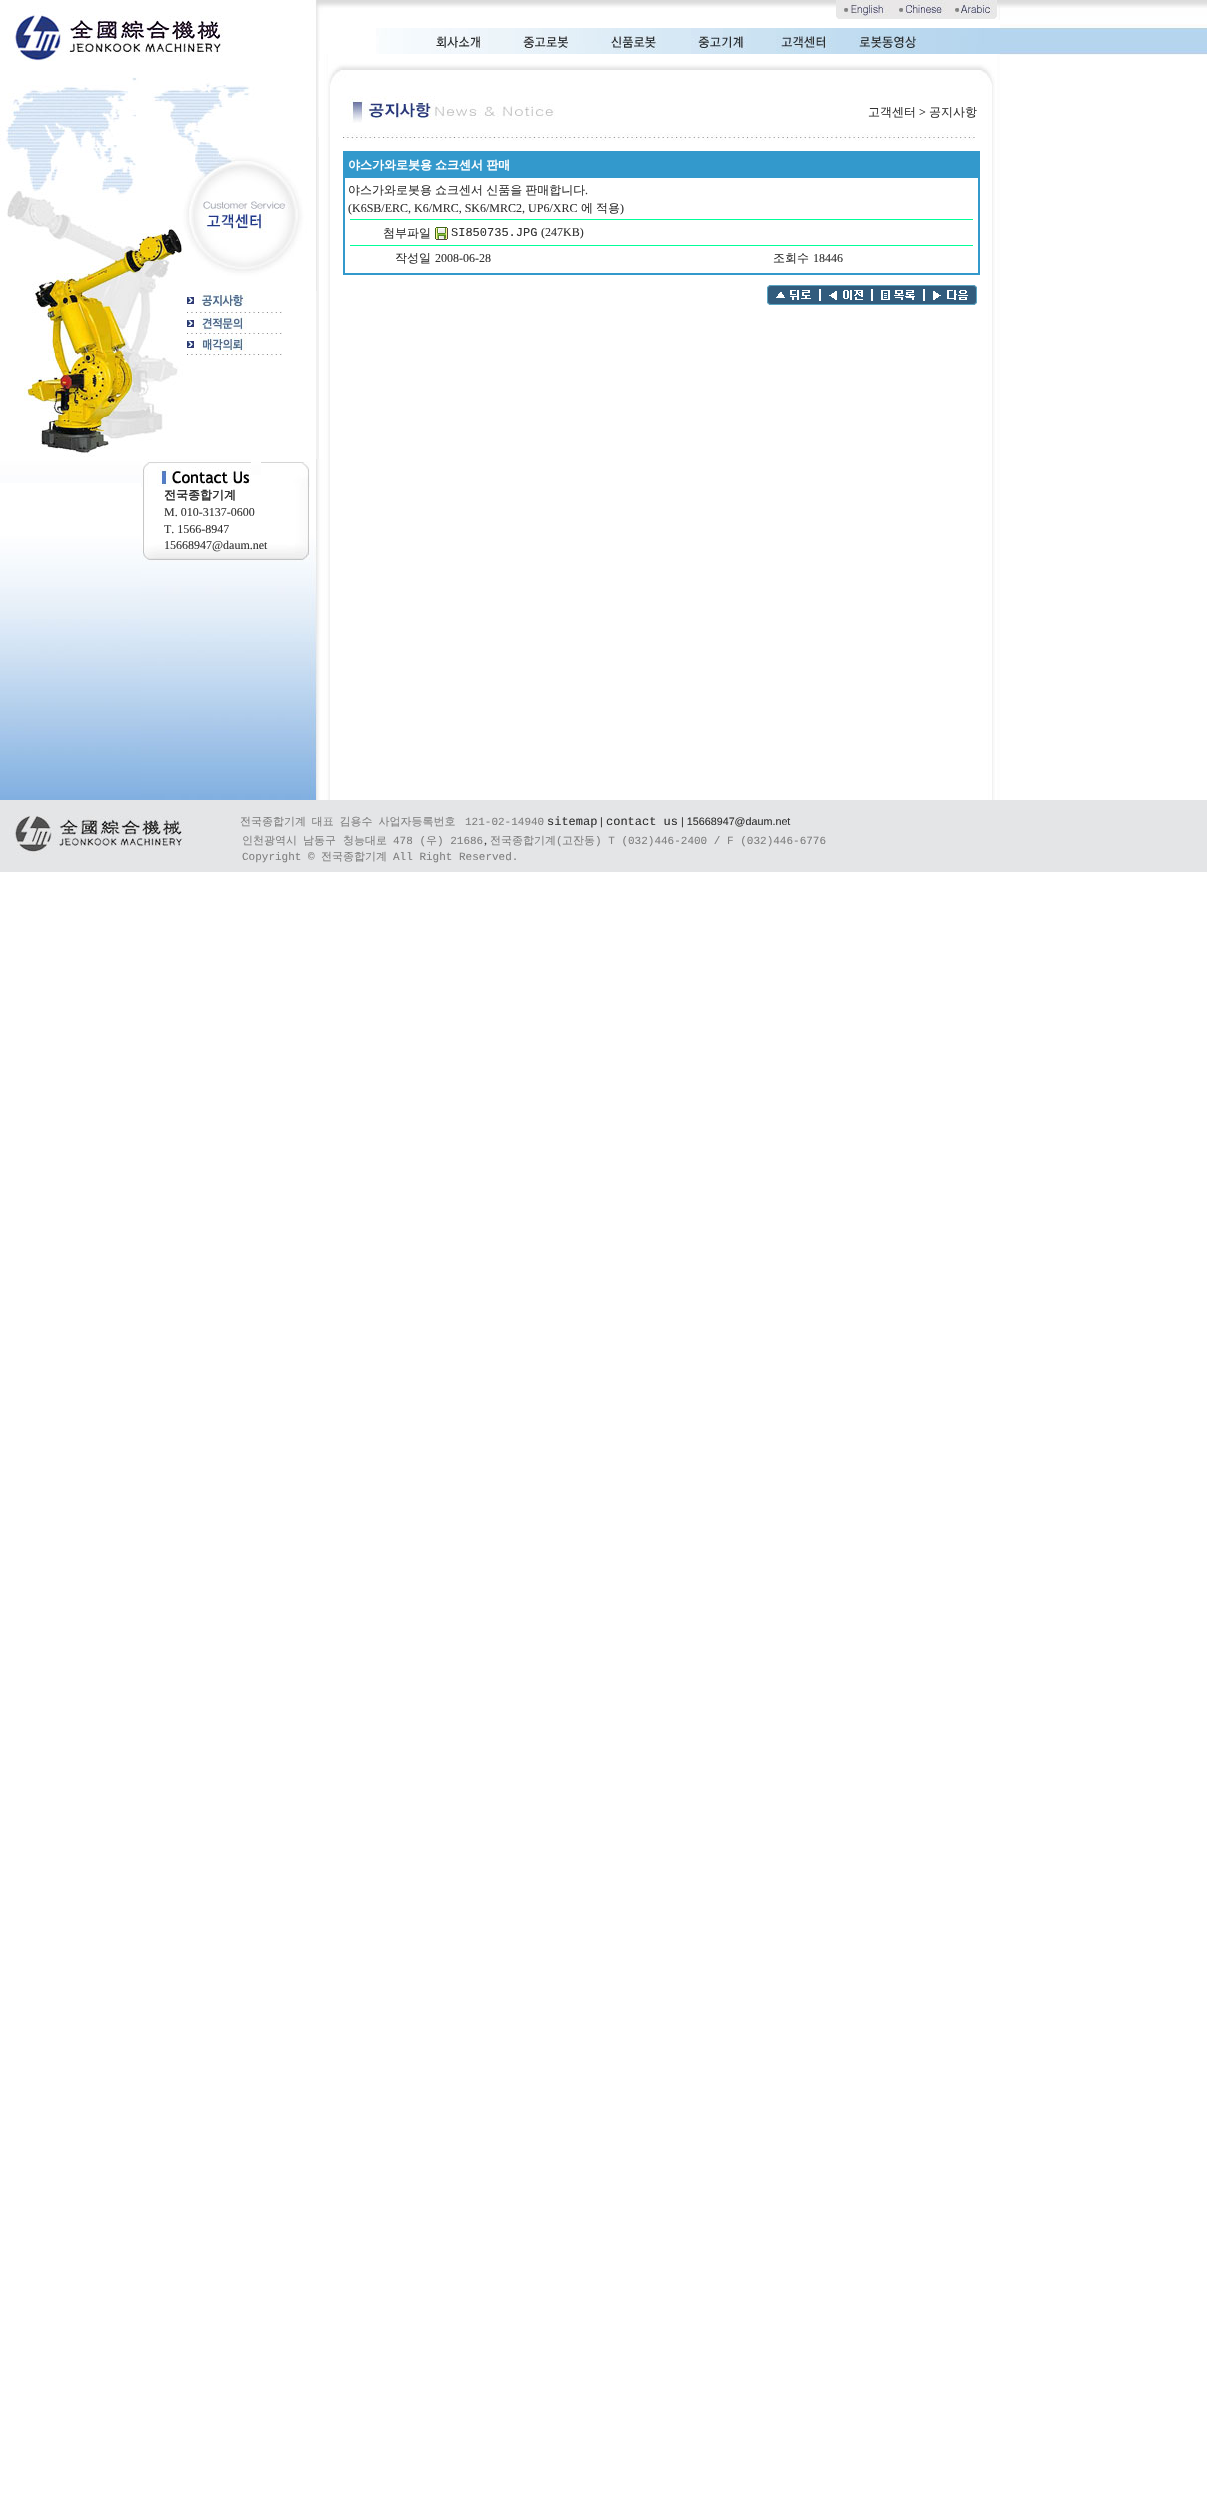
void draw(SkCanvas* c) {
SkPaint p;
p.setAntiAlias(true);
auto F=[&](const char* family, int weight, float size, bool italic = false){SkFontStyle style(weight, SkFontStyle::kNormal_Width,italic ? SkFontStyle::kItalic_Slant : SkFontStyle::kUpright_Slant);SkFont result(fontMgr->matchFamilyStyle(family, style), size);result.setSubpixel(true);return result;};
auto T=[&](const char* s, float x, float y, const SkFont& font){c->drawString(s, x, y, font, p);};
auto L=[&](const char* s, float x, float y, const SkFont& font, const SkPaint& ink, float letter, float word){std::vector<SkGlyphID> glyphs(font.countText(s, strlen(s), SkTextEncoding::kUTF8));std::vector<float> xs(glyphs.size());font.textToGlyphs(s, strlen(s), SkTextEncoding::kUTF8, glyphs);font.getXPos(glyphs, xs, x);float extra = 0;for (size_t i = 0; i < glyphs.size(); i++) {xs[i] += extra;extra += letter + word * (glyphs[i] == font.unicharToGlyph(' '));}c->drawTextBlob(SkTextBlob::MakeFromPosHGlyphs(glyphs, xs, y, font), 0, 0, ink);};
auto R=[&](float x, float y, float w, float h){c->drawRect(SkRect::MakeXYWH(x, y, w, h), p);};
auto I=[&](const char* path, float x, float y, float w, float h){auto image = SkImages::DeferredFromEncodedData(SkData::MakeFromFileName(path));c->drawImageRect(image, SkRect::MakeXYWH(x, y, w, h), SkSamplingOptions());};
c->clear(0xffffffff);
I("1.png",1000,0,207,55);
I("2.png",323,54,677,746);
I("3.png",323,0,511,20);
I("4.png",834,0,166,20);
I("5.png",376,28,52,26);
I("6.png",428,28,60,26);
p.setColor(0xffecf4f9);
R(488,28,24,26);
I("7.png",512,28,65,26);
I("8.png",577,28,25,26);
I("9.png",602,28,60,26);
p.setColor(0xffd6e8f5);
R(662,28,29,26);
I("10.png",691,28,60,26);
p.setColor(0xffcbe2f2);
R(751,28,25,26);
I("11.png",776,28,60,26);
p.setColor(0xffc1dcf1);
R(836,28,20,26);
I("12.png",856,28,64,26);
I("13.png",920,28,80,26);
I("14.png",328,54,667,32);
I("15.png",347,96,208,27);
auto f1 = F("WenQuanYi Zen Hei",500,12);
p.setColor(0xff333333);
T("고객센터",868,116,f1);
auto f2 = F("Liberation Serif",400,12);
T(">",919,116,f2);
T("공지사항",929,116,f1);
I("16.png",343,133,632,8);
p.setColor(0xff3399cc);
R(343,151,637,124);
auto f3 = F("WenQuanYi Zen Hei",700,12);
p.setColor(0xffffffff);
L("야스가와로봇용 쇼크센서 판매",348,169,f3,p,0,-.5);
R(345,178,633,95);
p.setColor(0xff333333);
L("야스가와로봇용 쇼크센서 신품을 판매합니다",348,194,f1,p,0,-.5);
T(".",585,194,f2);
T("(K6SB/ERC, K6/MRC, SK6/MRC2, UP6/XRC",348,212,f2);
T("에",581,212,f1);
T("적용",596,212,f1);
T(")",620,212,f2);
p.setColor(0xff00ff99);
R(350,219,623,1);
p.setColor(0xff333333);
T("첨부파일",383,237,f1);
I("17.png",435,227,13,13);
auto f4 = F("Liberation Mono",400,12);
T("SI850735.JPG",451,236,f4);
T("(247KB)",541,236,f2);
p.setColor(0xff00ff99);
R(350,245,623,1);
p.setColor(0xff333333);
T("작성일",395,262,f1);
T("2008-06-28",435,262,f2);
T("조회수",773,262,f1);
T("18446",813,262,f2);
I("18.png",767,285,5,20);
I("19.png",772,285,44,20);
I("20.png",816,285,8,20);
I("21.png",824,285,44,20);
I("20.png",868,285,8,20);
I("22.png",876,285,44,20);
I("20.png",920,285,8,20);
I("23.png",928,285,44,20);
I("24.png",972,285,5,20);
I("25.png",0,0,323,61);
I("26.png",0,61,319,76);
I("27.png",0,137,187,320);
p.setColor(0xfff1f1f1);
R(317,137,2,154);
I("28.png",187,137,130,154);
R(316,291,3,168);
I("29.png",187,297,7,7);
I("30.png",199,291,48,16);
I("31.png",187,310,95,5);
I("29.png",187,320,7,7);
I("32.png",199,315,48,16);
I("31.png",187,331,95,5);
I("29.png",187,341,7,7);
I("33.png",199,336,48,16);
I("31.png",187,352,95,5);
I("34.png",0,459,310,28);
I("35.png",0,483,141,317);
I("36.png",142,459,109,28);
p.setColor(0xffffffff);
R(251,475,10,12);
I("37.png",261,462,48,25);
I("38.png",141,487,23,75);
I("39.png",164,487,120,75);
p.setColor(0xff333333);
T("전국종합기계",164,499,f3);
T("M. 010-3137-0600",164,516,f2);
T("T. 1566-8947",164,533,f2);
T("15668947@daum.net",164,549,f2);
I("40.png",284,487,26,75);
I("41.png",310,459,13,103);
I("42.png",141,562,182,238);
p.setColor(0xffe4e5e7);
R(0,800,1207,72);
I("43.png",9,816,175,40);
auto f5 = F("WenQuanYi Zen Hei",500,11);
p.setColor(0xff808080);
L("전국종합기계 대표 김용수 사업자등록번호",240,825,f5,p,0,2.5);
auto f6 = F("Liberation Mono",400,11);
T("121-02-14940",465,825,f6);
p.setColor(0xff333333);
T("sitemap",547,825,f4);
auto f7 = F("Liberation Sans",400,10.75);
T("|",600,825,f7);
T("contact us",606,825,f4);
T("| 15668947@daum.net",681,825,f7);
p.setColor(0xff808080);
T("인천광역시",242,844,f5);
T("남동구",303,844,f5);
T("청능대로",343,844,f5);
T("478 (",393,844,f6);
T("우",426,844,f5);
T(") 21686",437,844,f6);
p.setColor(0xff333333);
T(",",484,844,f2);
p.setColor(0xff808080);
T("전국종합기계",490,844,f5);
T("(",556,844,f6);
T("고잔동",562,844,f5);
T(") T (032)446-2400 / F (032)446-6776",595,844,f6);
T("Copyright ©",242,860,f6);
T("전국종합기계",321,860,f5);
T("All Right Reserved.",393,860,f6);
}
